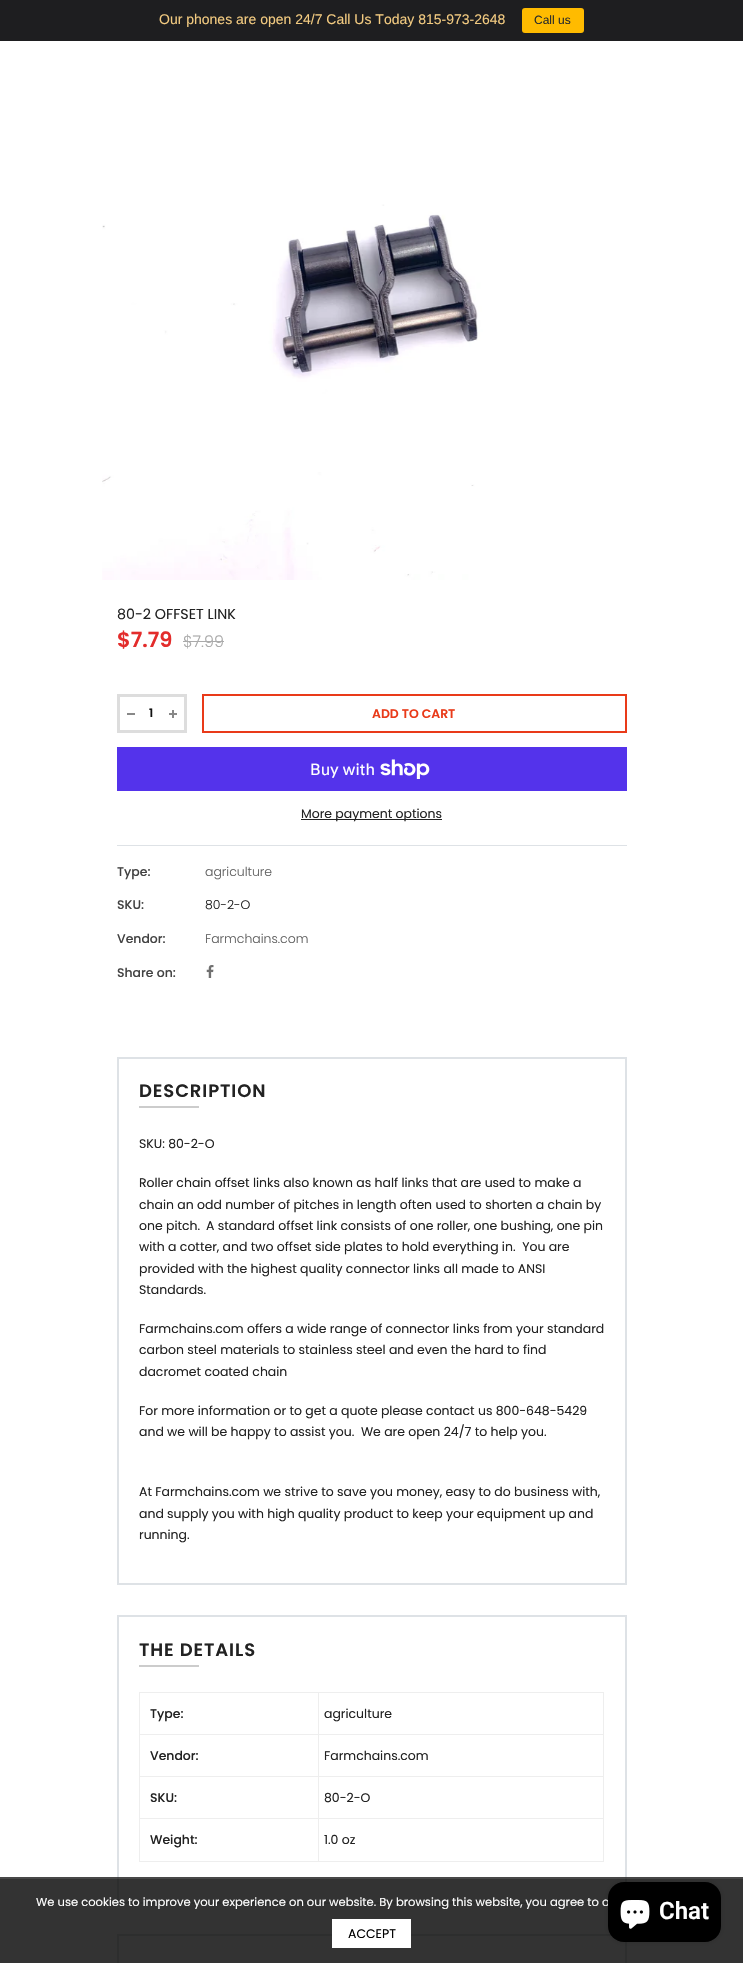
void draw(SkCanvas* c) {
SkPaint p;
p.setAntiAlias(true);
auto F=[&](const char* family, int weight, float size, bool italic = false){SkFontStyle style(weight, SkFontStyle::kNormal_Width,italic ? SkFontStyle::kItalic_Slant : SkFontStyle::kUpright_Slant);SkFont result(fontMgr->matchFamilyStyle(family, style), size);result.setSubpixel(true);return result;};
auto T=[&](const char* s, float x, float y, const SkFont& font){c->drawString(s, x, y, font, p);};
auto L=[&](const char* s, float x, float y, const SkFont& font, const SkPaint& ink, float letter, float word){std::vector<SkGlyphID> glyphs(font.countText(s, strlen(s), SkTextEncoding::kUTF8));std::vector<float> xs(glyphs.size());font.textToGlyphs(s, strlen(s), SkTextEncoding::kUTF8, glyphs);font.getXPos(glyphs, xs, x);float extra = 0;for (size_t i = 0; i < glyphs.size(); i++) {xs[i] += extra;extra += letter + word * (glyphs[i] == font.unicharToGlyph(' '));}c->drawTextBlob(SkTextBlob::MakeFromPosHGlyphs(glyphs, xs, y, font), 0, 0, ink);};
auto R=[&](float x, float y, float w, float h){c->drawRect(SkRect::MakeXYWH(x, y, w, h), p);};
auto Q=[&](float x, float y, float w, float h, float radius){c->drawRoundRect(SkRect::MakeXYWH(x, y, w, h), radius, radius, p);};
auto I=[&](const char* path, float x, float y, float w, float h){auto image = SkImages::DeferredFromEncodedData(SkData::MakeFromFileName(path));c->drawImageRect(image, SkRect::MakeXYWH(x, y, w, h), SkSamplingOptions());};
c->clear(0xffffffff);
p.setColor(0xff1e1e20);
R(0,0,743,41);
auto f1 = F("Liberation Sans",400,14);
p.setColor(0xfff2ca80);
T("Our phones are open 24/7 Call Us Today 815-973-2648",159,24,f1);
p.setColor(0xffffbb00);
Q(522,8,62,25,3);
auto f2 = F("Liberation Sans",400,12);
p.setColor(0xff2a2c2b);
T("Call us",534,24,f2);
I("1.png",102,41,540,539);
auto f3 = F("Poppins",400,14.25);
p.setColor(0xff222222);
T("80-2 OFFSET LINK",117,619,f3);
auto f4 = F("Poppins",600,21);
p.setColor(0xffe32c2b);
T("$7.79",117,647,f4);
auto f5 = F("Poppins",300,16);
p.setColor(0xffaaaaaa);
T("$7.99",183,647,f5);
R(183,641,41,1);
p.setStroke(true);
p.setStrokeWidth(3);
p.setColor(0xffdddddd);
c->drawRect(SkRect::MakeXYWH(118.5,695.5,67,36),p);
p.setStroke(false);
p.setColor(0xff888888);
R(127,713,8,2);
auto f6 = F("Poppins",600,11.55);
p.setColor(0xff111111);
T("1",149,717,f6);
p.setColor(0xff888888);
R(169,713,8,2);
R(172,710,2,8);
p.setStroke(true);
p.setStrokeWidth(2);
p.setColor(0xffe93a19);
c->drawRect(SkRect::MakeXYWH(203,695,423,37),p);
auto f7 = F("Poppins",600,12.45);
p.setStroke(false);
T("ADD TO CART",372,718,f7);
p.setColor(0xff5433eb);
R(117,747,510,44);
auto f8 = F("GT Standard",400,16);
p.setColor(0xffffffff);
T("Buy with",310,775,f8);
I("2.png",380,759,50,20);
p.setColor(0xff222222);
R(301,819,141,1);
auto f9 = F("Poppins",400,12.45);
T("More payment options",301,818,f9);
p.setColor(0xffdee2e6);
R(117,845,510,1);
auto f10 = F("Poppins",500,12.45);
p.setColor(0xff424242);
T("Type:",117,876,f10);
auto f11 = F("Poppins",300,12.45);
p.setColor(0xff616161);
T("agriculture",205,876,f11);
p.setColor(0xff424242);
T("SKU:",117,909,f10);
p.setColor(0xff222222);
T("80-2-O",205,909,f11);
p.setColor(0xff424242);
T("Vendor:",117,943,f10);
p.setColor(0xff616161);
T("Farmchains.com",205,943,f11);
p.setColor(0xff424242);
T("Share on:",117,977,f10);
I("3.png",206,965,8,13);
p.setStroke(true);
p.setColor(0xffdee2e6);
c->drawRect(SkRect::MakeXYWH(118,1058,508,526),p);
auto f12 = F("Poppins",600,18);
p.setStroke(false);
p.setColor(0xff222222);
L("DESCRIPTION",139,1097,f12,p,.9,0);
p.setColor(0xffcccccc);
R(139,1106,60,2);
p.setColor(0xff222222);
T("SKU: 80-2-O",139,1148,f9);
T("Roller chain offset links also known as half links that are used to make a",139,1187,f9);
T("chain an odd number of pitches in length often used to shorten a chain by",139,1209,f9);
T("one pitch.",139,1230,f9);
T("A standard offset link consists of one roller, one bushing, one pin",206,1230,f9);
T("with a cotter, and two offset side plates to hold everything in.  You are",139,1251,f9);
T("provided with the highest quality connector links all made to ANSI",139,1273,f9);
T("Standards.",139,1294,f9);
T("Farmchains.com offers a wide range of connector links from your standard",139,1333,f9);
T("carbon steel materials to stainless steel and even the hard to find",139,1354,f9);
T("dacromet coated chain",139,1376,f9);
T("For more information or to get a quote please contact us 800-648-5429",139,1415,f9);
T("and we will be happy to assist you.  We are open 24/7 to help you.",139,1436,f9);
T("At Farmchains.com we strive to save you money, easy to do business with,",139,1496,f9);
T("and supply you with high quality product to keep your equipment up and",139,1518,f9);
T("running.",139,1539,f9);
p.setStroke(true);
p.setColor(0xffdee2e6);
c->drawRect(SkRect::MakeXYWH(118,1616,508,287),p);
p.setStroke(false);
p.setColor(0xff222222);
L("THE DETAILS",139,1656,f12,p,.9,0);
p.setColor(0xffcccccc);
R(139,1665,60,2);
p.setColor(0xffeeeeee);
R(318,1692,286,1);
R(318,1734,286,1);
R(318,1776,286,1);
R(318,1818,286,1);
R(603,1818,1,44);
R(318,1861,286,1);
R(318,1818,1,44);
R(139,1818,180,1);
R(318,1776,1,43);
R(139,1776,180,1);
R(318,1734,1,43);
R(139,1734,180,1);
R(318,1692,1,43);
R(139,1692,180,1);
R(139,1861,180,1);
R(139,1818,1,44);
R(139,1776,1,43);
R(139,1734,1,43);
R(139,1692,1,43);
p.setColor(0xff222222);
T("Type:",150,1718,f10);
p.setColor(0xffeeeeee);
R(603,1776,1,43);
R(603,1734,1,43);
R(603,1692,1,43);
p.setColor(0xff222222);
T("agriculture",324,1718,f9);
T("Vendor:",150,1760,f10);
T("Farmchains.com",324,1760,f9);
T("SKU:",150,1802,f10);
T("80-2-O",324,1802,f9);
T("Weight:",150,1844,f10);
T("1.0 oz",324,1844,f9);
p.setStroke(true);
p.setColor(0xffdee2e6);
c->drawRect(SkRect::MakeXYWH(118,1935,508,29),p);
p.setStroke(false);
p.setColor(0xcc000000);
R(0,1877,743,86);
p.setColor(0x1affffff);
R(0,1877,743,2);
auto f13 = F("Poppins",400,11.55);
p.setColor(0xffffffff);
T("We use cookies to improve your experience on our website. By browsing this website, you agree to o",36,1906,f13);
R(332,1919,79,29);
p.setColor(0xff000000);
T("ACCEPT",348,1938,f9);
p.setColor(0x26000000);
p.setMaskFilter(SkMaskFilter::MakeBlur(kNormal_SkBlurStyle, 2.5));
c->drawRoundRect(SkRect::MakeXYWH(608,1882,113,60),16,16,p);
p.setMaskFilter(nullptr);
p.setColor(0xff000000);
Q(608,1882,113,60,16);
I("4.png",620,1900,30,29);
auto f14 = F("Roboto",600,24);
p.setColor(0xffffffff);
T("Chat",659,1919,f14);
}
